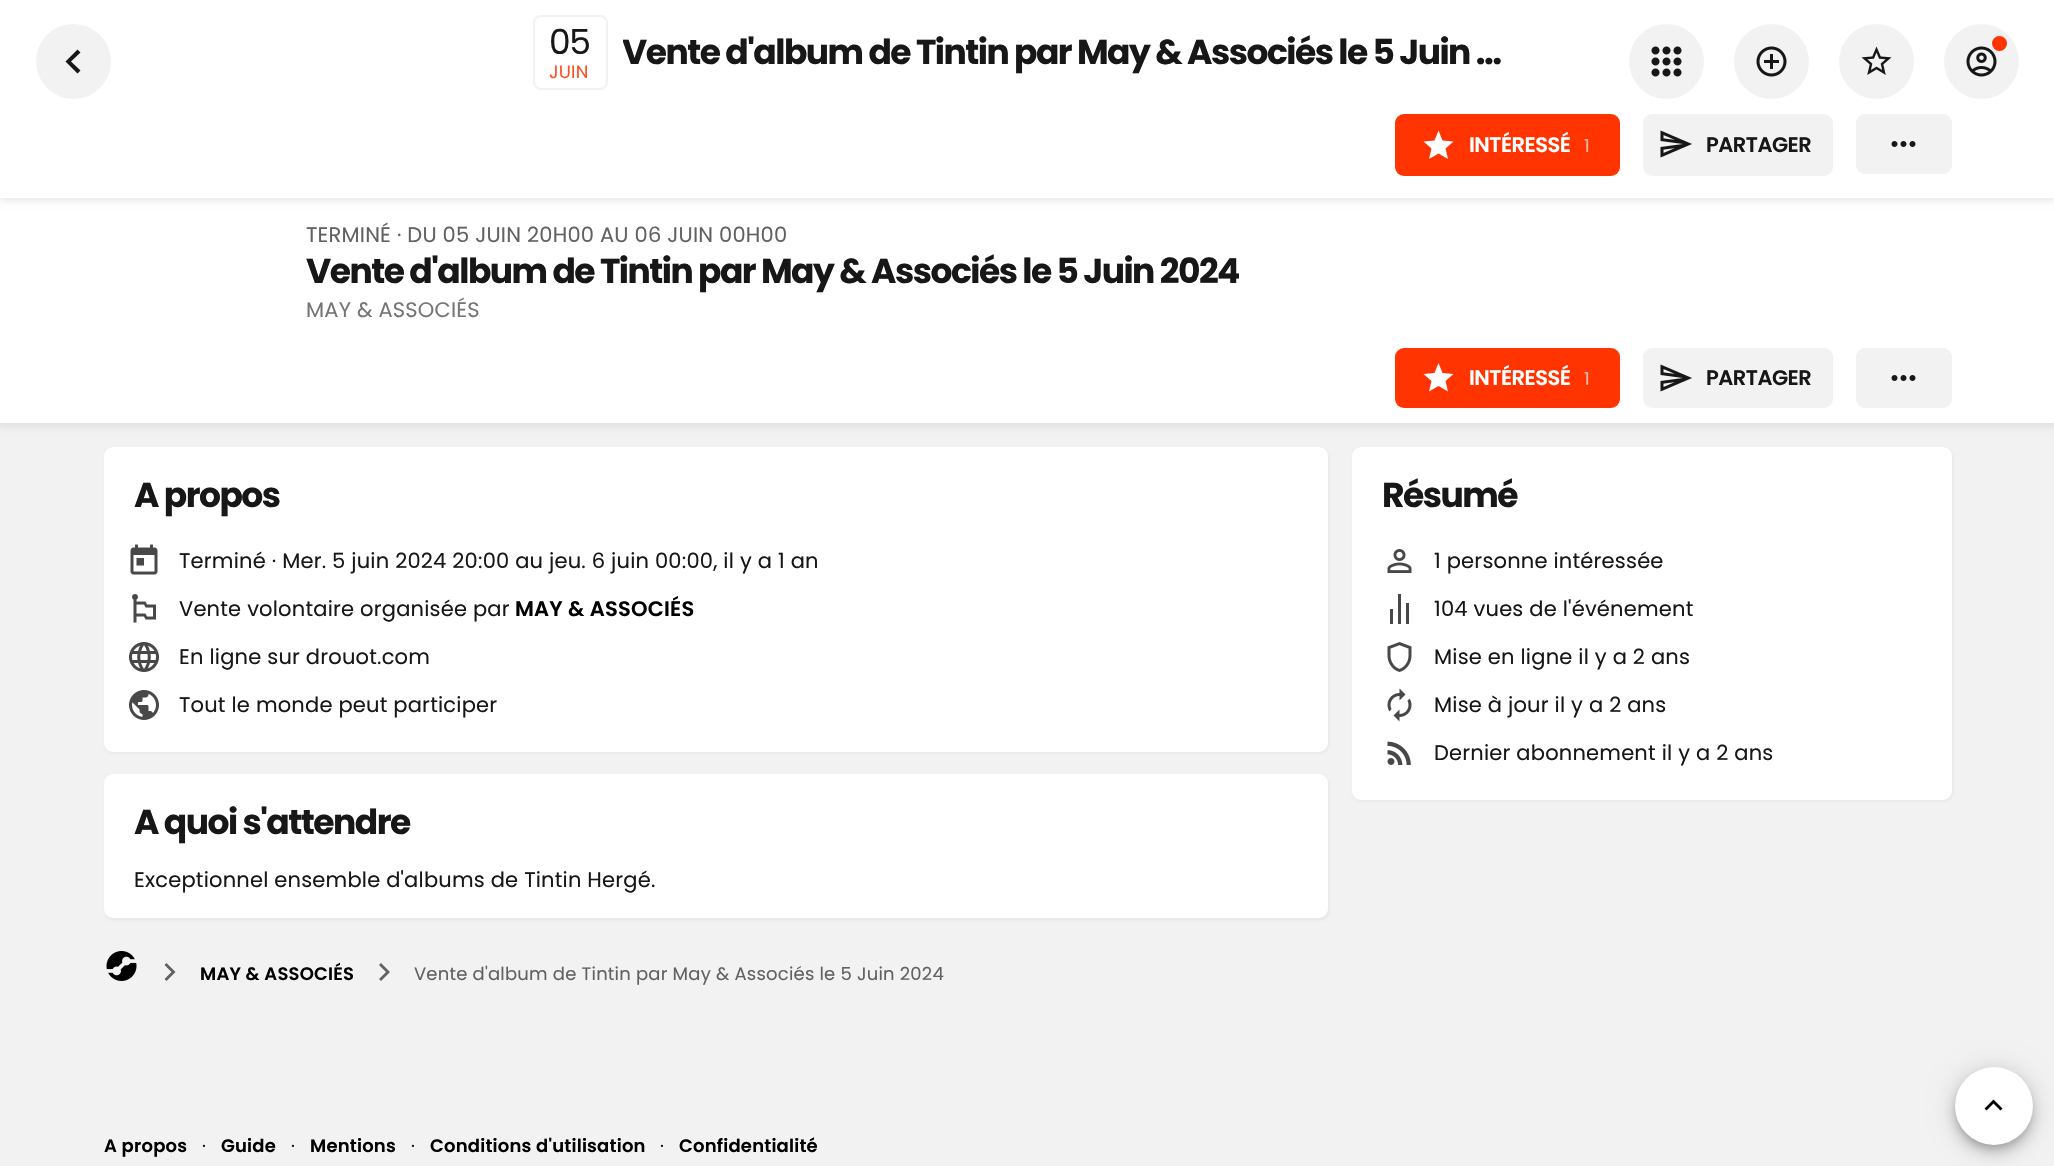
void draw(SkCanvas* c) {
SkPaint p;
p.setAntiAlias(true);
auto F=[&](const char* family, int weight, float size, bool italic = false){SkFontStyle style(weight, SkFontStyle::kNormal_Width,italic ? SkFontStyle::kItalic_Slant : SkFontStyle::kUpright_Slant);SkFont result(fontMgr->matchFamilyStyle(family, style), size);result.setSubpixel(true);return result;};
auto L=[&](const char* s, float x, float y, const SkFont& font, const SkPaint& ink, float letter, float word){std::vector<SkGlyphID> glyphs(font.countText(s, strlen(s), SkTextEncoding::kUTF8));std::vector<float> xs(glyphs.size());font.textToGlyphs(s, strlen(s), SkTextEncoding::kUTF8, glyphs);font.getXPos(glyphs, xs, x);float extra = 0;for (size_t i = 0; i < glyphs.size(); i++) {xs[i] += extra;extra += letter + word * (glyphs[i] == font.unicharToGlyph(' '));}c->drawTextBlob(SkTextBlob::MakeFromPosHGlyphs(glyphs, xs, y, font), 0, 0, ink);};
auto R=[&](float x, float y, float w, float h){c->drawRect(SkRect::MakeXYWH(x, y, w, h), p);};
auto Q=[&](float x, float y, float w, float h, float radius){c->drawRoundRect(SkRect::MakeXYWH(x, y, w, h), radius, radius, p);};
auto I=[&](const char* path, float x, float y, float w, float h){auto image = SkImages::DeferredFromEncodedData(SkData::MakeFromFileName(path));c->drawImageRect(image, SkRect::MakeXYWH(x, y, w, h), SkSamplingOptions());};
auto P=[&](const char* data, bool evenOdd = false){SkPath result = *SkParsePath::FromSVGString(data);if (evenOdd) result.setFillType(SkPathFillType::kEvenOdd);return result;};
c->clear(0xfff2f2f2);
p.setColor(0x1a000000);
p.setMaskFilter(SkMaskFilter::MakeBlur(kNormal_SkBlurStyle, 4));
c->drawRect(SkRect::MakeXYWH(0,200,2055,226),p);
p.setMaskFilter(nullptr);
p.setColor(0xffffffff);
R(0,198,2054,225);
p.setColor(0x1a000000);
p.setMaskFilter(SkMaskFilter::MakeBlur(kNormal_SkBlurStyle, 4));
c->drawRect(SkRect::MakeXYWH(0,2,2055,198),p);
p.setMaskFilter(nullptr);
p.setColor(0xffffffff);
R(0,0,2054,198);
p.setColor(0xfff2f2f2);
c->drawCircle(73.5,61.5,37.5,p);
p.setColor(0xff171717);
c->drawPath(P("M80.5 52.5l-3-3l-12 12l12 12l3-3l-9.5-9z"),p);
p.setStroke(true);
p.setStrokeWidth(2);
p.setColor(0xfff2f2f2);
c->drawRoundRect(SkRect::MakeXYWH(534,16,73,73),7,7,p);
auto f1 = F("Poppins",400,34.5);
p.setStroke(false);
p.setColor(0xff171717);
L("05",549,54,f1,p,-1.5,0);
auto f2 = F("Poppins",400,18);
p.setColor(0xfffc5022);
L("JUIN",549,78,f2,p,.2,0);
c->save();
c->clipRect(SkRect::MakeXYWH(623,32,886,42));
auto f3 = F("Poppins",700,34.5);
p.setColor(0xff171717);
L("Vente d'album de Tintin par May & Associés le 5 Juin …",622,64,f3,p,-1.5,0);
c->restore();
p.setColor(0xfff2f2f2);
c->drawCircle(1666.5,61.5,37.5,p);
I("1.png",1651,46,31,31);
c->drawCircle(1771.5,61.5,37.5,p);
I("2.png",1756,46,31,31);
c->drawCircle(1876.5,61.5,37.5,p);
I("3.png",1861,46,31,29);
c->drawCircle(1981.5,61.5,37.5,p);
I("4.png",1966,46,31,31);
p.setColor(0xffff3401);
c->drawCircle(1999.5,43.5,7.5,p);
p.setColor(0xffff3400);
Q(1395,114,225,62,9);
p.setColor(0xffffffff);
c->drawPath(P("M1438.5 153.5l9.5 5.5l-2.5-10.5l8-7l-11-1l-4-10l-4 10l-11 1l8 7l-2.5 10.5z"),p);
auto f4 = F("Poppins",600,21);
L("INTÉRESSÉ",1469,152,f4,p,-.5,0);
p.setColor(0xffffb8a6);
L("1",1584,152,f2,p,-.5,0);
p.setColor(0xfff2f2f2);
Q(1643,114,190,62,9);
I("5.png",1660,130,32,28);
p.setColor(0xff171717);
L("PARTAGER",1706,152,f4,p,-.5,0);
p.setColor(0xfff2f2f2);
Q(1856,114,96,60,9);
I("6.png",1891,141,25,6);
p.setColor(0xffe5e5e5);
R(0,423,2054,2);
auto f5 = F("Poppins",400,21);
p.setColor(0xff616161);
L("TERMINÉ · DU 05 JUIN 20H00 AU 06 JUIN 00H00",306,242,f5,p,.2,0);
p.setColor(0xff171717);
L("Vente d'album de Tintin par May & Associés le 5 Juin 2024",306,283,f3,p,-1.5,0);
p.setColor(0xff757575);
L("MAY & ASSOCIÉS",306,317,f5,p,.2,0);
p.setColor(0xffff3400);
Q(1395,348,225,60,9);
p.setColor(0xffffffff);
c->drawPath(P("M1438.5 386l9.5 5.5l-2.5-10.5l8-7l-11-1l-4-10l-4 10l-11 1l8 7l-2.5 10.5z"),p);
L("INTÉRESSÉ",1469,385,f4,p,-.5,0);
p.setColor(0xffffb8a6);
L("1",1584,385,f2,p,-.5,0);
p.setColor(0xfff2f2f2);
Q(1643,348,190,60,9);
I("5.png",1660,364,32,28);
p.setColor(0xff171717);
L("PARTAGER",1706,385,f4,p,-.5,0);
p.setColor(0xfff2f2f2);
Q(1856,348,96,60,9);
I("6.png",1891,375,25,6);
p.setColor(0x0d000000);
p.setMaskFilter(SkMaskFilter::MakeBlur(kNormal_SkBlurStyle, 1.5));
c->drawRoundRect(SkRect::MakeXYWH(105,449,1224,304),9,9,p);
p.setMaskFilter(nullptr);
p.setColor(0xffffffff);
Q(104,447,1224,305,9);
p.setColor(0xff171717);
L("A propos",134,507,f3,p,-1.5,0);
I("7.png",130,544,28,31);
L("Terminé · Mer. 5 juin 2024 20:00 au jeu. 6 juin 00:00, il y a 1 an",179,568,f5,p,.2,0);
I("8.png",132,594,24,29);
L("Vente volontaire organisée par",179,616,f5,p,.2,0);
p.setColor(0xff000000);
L("MAY & ASSOCIÉS",515,616,f4,p,.2,0);
I("9.png",129,642,30,30);
p.setColor(0xff171717);
L("En ligne sur drouot.com",179,664,f5,p,.2,0);
I("10.png",129,690,30,30);
L("Tout le monde peut participer",179,712,f5,p,.2,0);
p.setColor(0x0d000000);
p.setMaskFilter(SkMaskFilter::MakeBlur(kNormal_SkBlurStyle, 1.5));
c->drawRoundRect(SkRect::MakeXYWH(105,776,1224,144),9,9,p);
p.setMaskFilter(nullptr);
p.setColor(0xffffffff);
Q(104,774,1224,144,9);
p.setColor(0xff171717);
L("A quoi s'attendre",134,834,f3,p,-1.5,0);
L("Exceptionnel ensemble d'albums de Tintin Hergé.",134,887,f5,p,.2,0);
p.setColor(0x0d000000);
p.setMaskFilter(SkMaskFilter::MakeBlur(kNormal_SkBlurStyle, 1.5));
c->drawRoundRect(SkRect::MakeXYWH(1353,449,600,352),9,9,p);
p.setMaskFilter(nullptr);
p.setColor(0xffffffff);
Q(1352,447,600,353,9);
p.setColor(0xff171717);
L("Résumé",1382,507,f3,p,-1.5,0);
I("11.png",1387,549,25,24);
L("1 personne intéressée",1434,568,f5,p,.2,0);
p.setColor(0xff484848);
R(1390,609,3,15);
R(1406,603,3,21);
R(1398,594,3,30);
p.setColor(0xff171717);
L("104 vues de l'événement",1434,616,f5,p,.2,0);
I("12.png",1387,642,25,30);
L("Mise en ligne il y a 2 ans",1434,664,f5,p,.2,0);
I("13.png",1387,688,25,34);
L("Mise à jour il y a 2 ans",1434,712,f5,p,.2,0);
I("14.png",1387,741,24,24);
L("Dernier abonnement il y a 2 ans",1434,760,f5,p,.2,0);
I("15.png",106,951,31,30);
p.setColor(0xff616161);
c->drawPath(P("M166.5 963l-2 2l7 7l-7 7l2 2l9-9z"),p);
auto f6 = F("Poppins",600,18);
p.setColor(0xff000000);
L("MAY & ASSOCIÉS",200,980,f6,p,.2,0);
p.setColor(0xff616161);
c->drawPath(P("M381 963l-2 2l7 7l-7 7l2 2l9-9z"),p);
L("Vente d'album de Tintin par May & Associés le 5 Juin 2024",414,980,f2,p,.2,0);
p.setColor(0xff000000);
L("A propos",104,1152,f6,p,.2,0);
p.setColor(0xff171717);
L("·",202,1152,f2,p,.2,0);
p.setColor(0xff000000);
L("Guide",221,1152,f6,p,.2,0);
p.setColor(0xff171717);
L("·",291,1152,f2,p,.2,0);
p.setColor(0xff000000);
L("Mentions",310,1152,f6,p,.2,0);
p.setColor(0xff171717);
L("·",411,1152,f2,p,.2,0);
p.setColor(0xff000000);
L("Conditions d'utilisation",430,1152,f6,p,.2,0);
p.setColor(0xff171717);
L("·",660,1152,f2,p,.2,0);
p.setColor(0xff000000);
L("Confidentialité",679,1152,f6,p,.2,0);
p.setColor(0x1f000000);
p.setMaskFilter(SkMaskFilter::MakeBlur(kNormal_SkBlurStyle, 13.5));
c->drawRoundRect(SkRect::MakeXYWH(1955,1068,78,78),39,39,p);
p.setMaskFilter(nullptr);
p.setColor(0x24000000);
p.setMaskFilter(SkMaskFilter::MakeBlur(kNormal_SkBlurStyle, 7.5));
c->drawRoundRect(SkRect::MakeXYWH(1955,1076,78,78),39,39,p);
p.setMaskFilter(nullptr);
p.setColor(0x33000000);
p.setMaskFilter(SkMaskFilter::MakeBlur(kNormal_SkBlurStyle, 4));
c->drawRoundRect(SkRect::MakeXYWH(1956,1073,75,75),37.5,37.5,p);
p.setMaskFilter(nullptr);
p.setColor(0xffffffff);
c->drawCircle(1994,1106,39,p);
p.setColor(0xff000000);
c->drawPath(P("M1986.5 1110.5l7-7l7 7l2-2l-9-9l-9 9z"),p);
}
